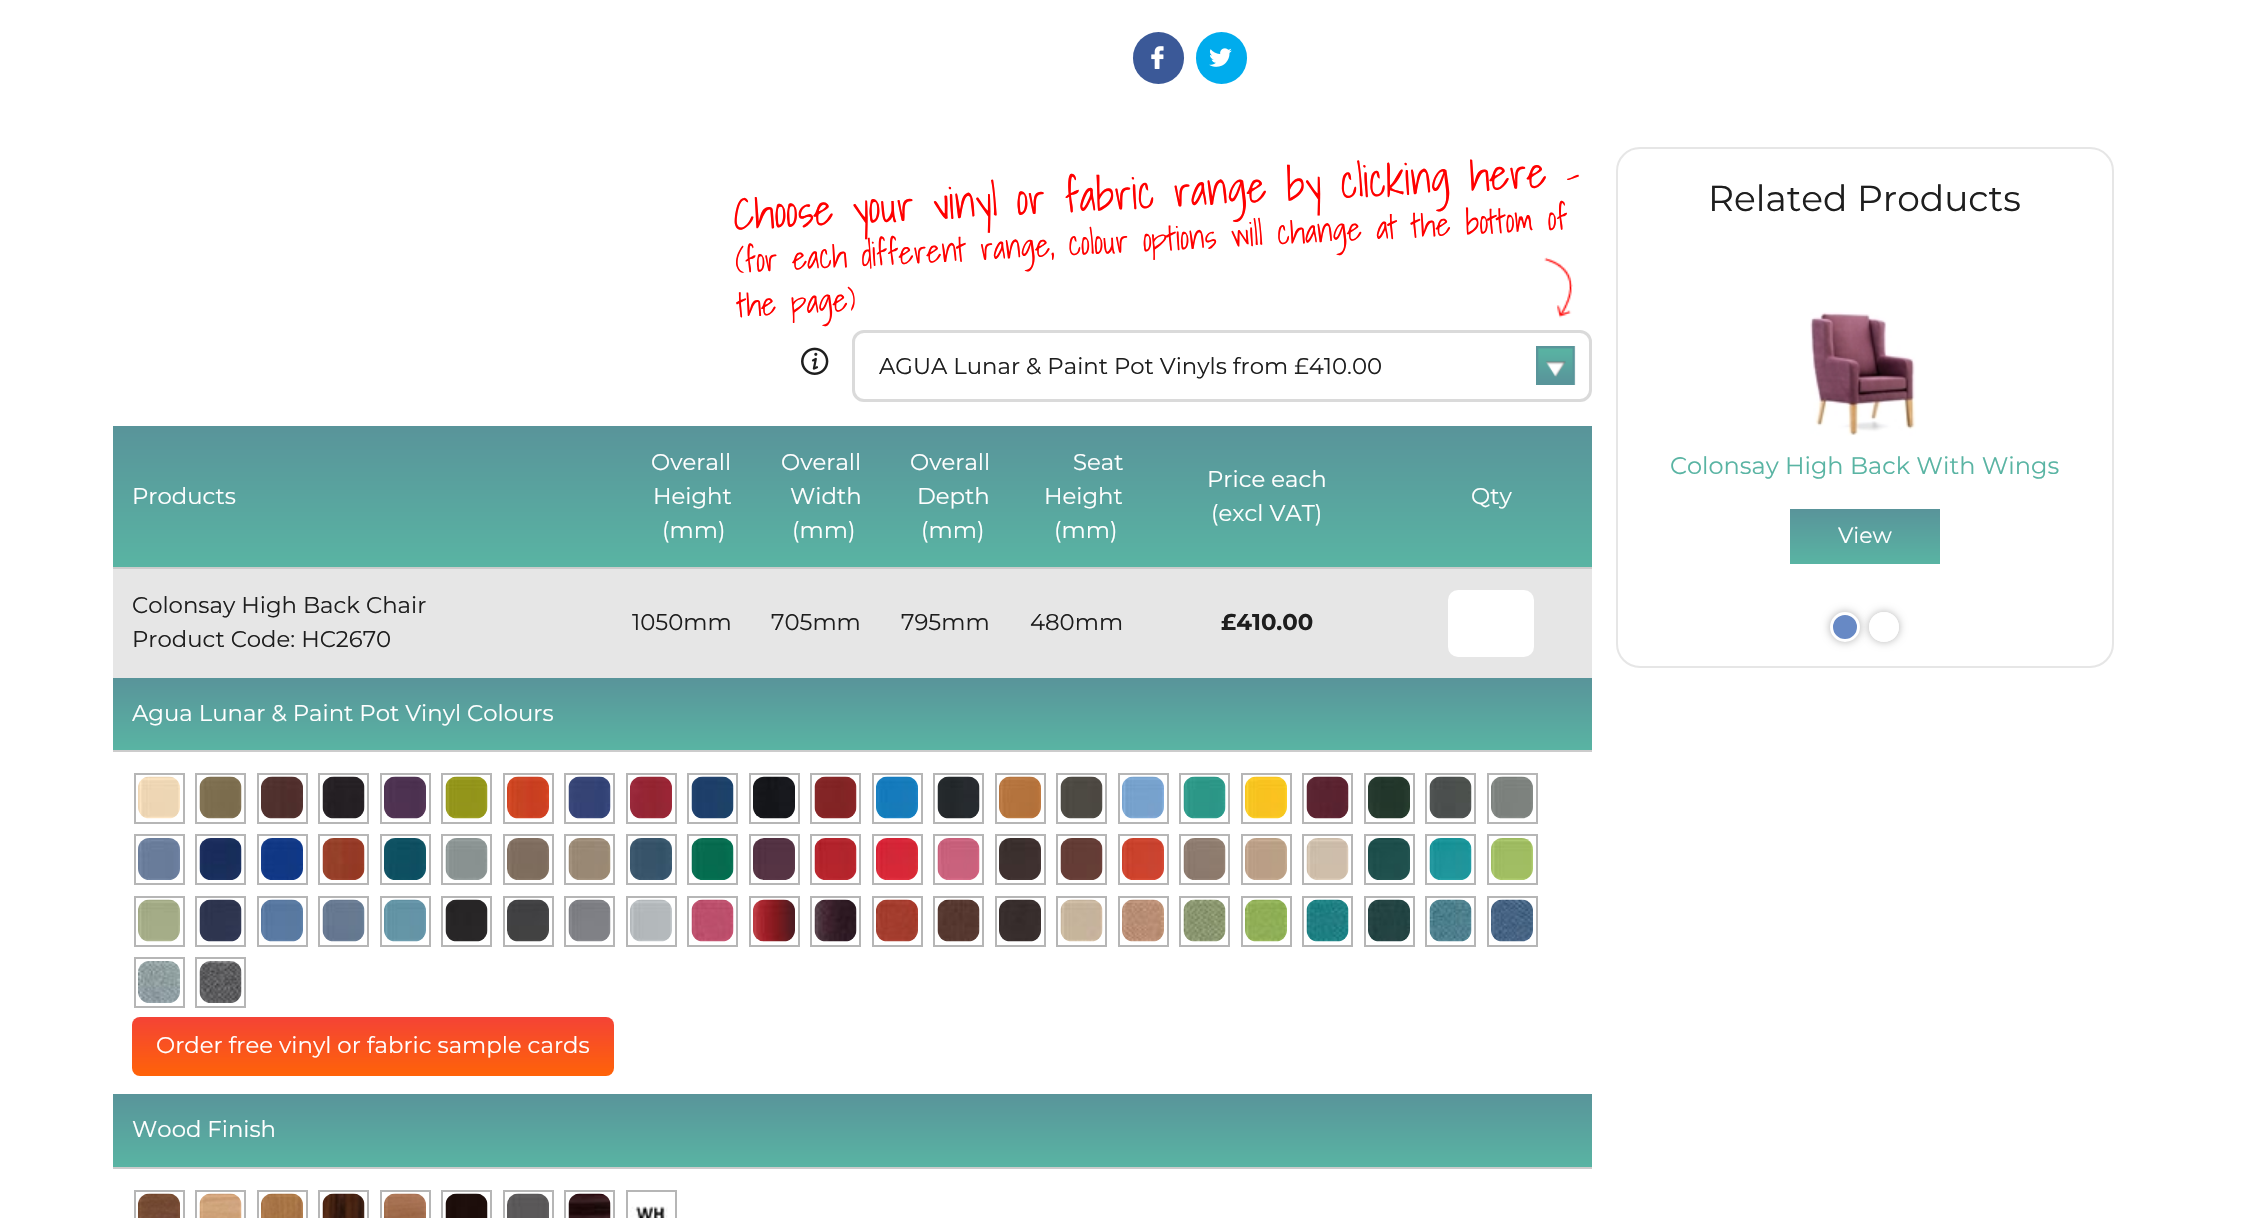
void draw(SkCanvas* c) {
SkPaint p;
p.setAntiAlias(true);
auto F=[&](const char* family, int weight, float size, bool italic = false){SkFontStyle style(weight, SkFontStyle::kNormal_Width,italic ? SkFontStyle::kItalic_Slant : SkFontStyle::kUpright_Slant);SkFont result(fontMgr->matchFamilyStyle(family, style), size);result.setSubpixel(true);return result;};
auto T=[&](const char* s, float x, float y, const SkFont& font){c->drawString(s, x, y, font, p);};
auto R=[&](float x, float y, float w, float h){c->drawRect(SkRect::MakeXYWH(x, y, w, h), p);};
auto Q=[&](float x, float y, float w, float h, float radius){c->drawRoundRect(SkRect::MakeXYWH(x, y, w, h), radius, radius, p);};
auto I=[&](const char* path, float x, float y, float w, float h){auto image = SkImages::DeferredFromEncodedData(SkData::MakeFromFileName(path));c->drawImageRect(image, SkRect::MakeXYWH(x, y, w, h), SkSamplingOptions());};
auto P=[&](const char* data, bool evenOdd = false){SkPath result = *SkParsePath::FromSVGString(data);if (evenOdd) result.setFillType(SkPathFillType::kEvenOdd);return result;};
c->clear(0xffffffff);
p.setColor(0xff3b5998);
Q(1133,32,51,52,25.5);
I("1.png",1151,46,13,23);
p.setColor(0xff00aced);
Q(1196,32,51,52,25.5);
I("2.png",1209,48,23,19);
auto f1 = F("Shadows Into Light",300,43.3);
p.setColor(0xffff0000);
c->save();
c->rotate(-3,734,230);
T("Choose your vinyl or fabric range by clicking here",734,230,f1);
c->restore();
auto f2 = F("Shadows Into Light",300,32.5);
c->save();
c->rotate(-3,1567,186);
T("-",1567,186,f2);
c->restore();
c->save();
c->rotate(-3,736,273);
T("(for each different range, colour options will change at the bottom of",736,273,f2);
c->restore();
c->save();
c->rotate(-3,738,317);
T("the page)",738,317,f2);
c->restore();
I("3.png",1544,257,29,61);
I("4.png",801,347,28,28);
I("5.png",1536,346,40,39);
p.setStroke(true);
p.setStrokeWidth(3);
p.setColor(0xffdadada);
c->drawRoundRect(SkRect::MakeXYWH(853.5,331.5,737,69),10.5,10.5,p);
auto f3 = F("Montserrat",400,22.8);
p.setStroke(false);
p.setColor(0xff1e1e1e);
T("AGUA Lunar & Paint Pot Vinyls from £410.00",879,374,f3);
{
const SkColor colors[] = {0xff59949a,0xff59b4a3};
const float stops[] = {0,1};
const SkPoint ends[] = {{362,426}, {362,567}};
p.setShader(SkGradientShader::MakeLinear(ends, colors, stops, 2, SkTileMode::kClamp));
p.setAlpha(255);
}
R(113,426,498,141);
p.setShader(nullptr);
p.setColor(0xffcccccc);
R(113,567,1479,2);
p.setColor(0xffffffff);
T("Products",132,504,f3);
{
const SkColor colors[] = {0xff59949a,0xff59b4a3};
const float stops[] = {0,1};
const SkPoint ends[] = {{680,426}, {680,567}};
p.setShader(SkGradientShader::MakeLinear(ends, colors, stops, 2, SkTileMode::kClamp));
p.setAlpha(255);
}
R(611,426,139,141);
p.setShader(nullptr);
p.setColor(0xffffffff);
T("Overall",651,470,f3);
T("Height",653,504,f3);
T("(mm)",662,538,f3);
{
const SkColor colors[] = {0xff59949a,0xff59b4a3};
const float stops[] = {0,1};
const SkPoint ends[] = {{815,426}, {815,567}};
p.setShader(SkGradientShader::MakeLinear(ends, colors, stops, 2, SkTileMode::kClamp));
p.setAlpha(255);
}
R(750,426,131,141);
p.setShader(nullptr);
p.setColor(0xffffffff);
T("Overall",781,470,f3);
T("Width",790,504,f3);
T("(mm)",792,538,f3);
{
const SkColor colors[] = {0xff59949a,0xff59b4a3};
const float stops[] = {0,1};
const SkPoint ends[] = {{945,426}, {945,567}};
p.setShader(SkGradientShader::MakeLinear(ends, colors, stops, 2, SkTileMode::kClamp));
p.setAlpha(255);
}
R(881,426,129,141);
p.setShader(nullptr);
p.setColor(0xffffffff);
T("Overall",910,470,f3);
T("Depth",917,504,f3);
T("(mm)",921,538,f3);
{
const SkColor colors[] = {0xff59949a,0xff59b4a3};
const float stops[] = {0,1};
const SkPoint ends[] = {{1076,426}, {1076,567}};
p.setShader(SkGradientShader::MakeLinear(ends, colors, stops, 2, SkTileMode::kClamp));
p.setAlpha(255);
}
R(1010,426,133,141);
p.setShader(nullptr);
p.setColor(0xffffffff);
T("Seat",1073,470,f3);
T("Height",1044,504,f3);
T("(mm)",1054,538,f3);
{
const SkColor colors[] = {0xff59949a,0xff59b4a3};
const float stops[] = {0,1};
const SkPoint ends[] = {{1268,426}, {1268,567}};
p.setShader(SkGradientShader::MakeLinear(ends, colors, stops, 2, SkTileMode::kClamp));
p.setAlpha(255);
}
R(1143,426,249,141);
p.setShader(nullptr);
p.setColor(0xffffffff);
T("Price each",1207,487,f3);
T("(excl VAT)",1211,521,f3);
{
const SkColor colors[] = {0xff59949a,0xff59b4a3};
const float stops[] = {0,1};
const SkPoint ends[] = {{1492,426}, {1492,567}};
p.setShader(SkGradientShader::MakeLinear(ends, colors, stops, 2, SkTileMode::kClamp));
p.setAlpha(255);
}
R(1392,426,200,141);
p.setShader(nullptr);
p.setColor(0xffffffff);
T("Qty",1471,504,f3);
p.setColor(0xffe6e6e6);
R(113,569,1479,109);
p.setColor(0xff1e1e1e);
T("Colonsay High Back Chair",132,613,f3);
T("Product Code: HC2670",132,647,f3);
T("1050mm",632,630,f3);
T("705mm",771,630,f3);
T("795mm",901,630,f3);
T("480mm",1030,630,f3);
auto f4 = F("Montserrat",700,22.8);
T("£410.00",1221,630,f4);
p.setColor(0xffffffff);
c->drawRoundRect(SkRect::MakeXYWH(1447,589,88,69),11,11,p);
p.setStroke(true);
p.setStrokeWidth(2);
p.setColor(0xffe6e6e6);
c->drawRoundRect(SkRect::MakeXYWH(1447,589,88,69),11,11,p);
p.setStroke(false);
{
const SkColor colors[] = {0xff59949a,0xff59b4a3};
const float stops[] = {0,1};
const SkPoint ends[] = {{852,678}, {852,750}};
p.setShader(SkGradientShader::MakeLinear(ends, colors, stops, 2, SkTileMode::kClamp));
p.setAlpha(255);
}
R(113,678,1479,72);
p.setShader(nullptr);
p.setColor(0xffcccccc);
R(113,750,1479,2);
p.setColor(0xffffffff);
T("Agua Lunar & Paint Pot Vinyl Colours",132,721,f3);
p.setStroke(true);
p.setColor(0xffb6b6b6);
c->drawRect(SkRect::MakeXYWH(135,774,49,49),p);
I("6.png",138,776,42,43);
c->drawRect(SkRect::MakeXYWH(196,774,49,49),p);
I("7.png",199,776,43,43);
c->drawRect(SkRect::MakeXYWH(258,774,49,49),p);
I("8.png",261,776,42,43);
c->drawRect(SkRect::MakeXYWH(319,774,49,49),p);
I("9.png",322,776,43,43);
c->drawRect(SkRect::MakeXYWH(381,774,49,49),p);
I("10.png",384,776,42,43);
c->drawRect(SkRect::MakeXYWH(442,774,49,49),p);
I("11.png",445,776,43,43);
c->drawRect(SkRect::MakeXYWH(504,774,49,49),p);
I("12.png",507,776,42,43);
c->drawRect(SkRect::MakeXYWH(565,774,49,49),p);
I("13.png",568,776,43,43);
c->drawRect(SkRect::MakeXYWH(627,774,49,49),p);
I("14.png",630,776,42,43);
c->drawRect(SkRect::MakeXYWH(688,774,49,49),p);
I("15.png",691,776,43,43);
c->drawRect(SkRect::MakeXYWH(750,774,49,49),p);
I("16.png",753,776,42,43);
c->drawRect(SkRect::MakeXYWH(811,774,49,49),p);
I("17.png",814,776,43,43);
c->drawRect(SkRect::MakeXYWH(873,774,49,49),p);
I("18.png",876,776,42,43);
c->drawRect(SkRect::MakeXYWH(934,774,49,49),p);
I("19.png",937,776,43,43);
c->drawRect(SkRect::MakeXYWH(996,774,49,49),p);
I("20.png",999,776,42,43);
c->drawRect(SkRect::MakeXYWH(1057,774,49,49),p);
I("21.png",1060,776,43,43);
c->drawRect(SkRect::MakeXYWH(1119,774,49,49),p);
I("22.png",1122,776,42,43);
c->drawRect(SkRect::MakeXYWH(1180,774,49,49),p);
I("23.png",1183,776,43,43);
c->drawRect(SkRect::MakeXYWH(1242,774,49,49),p);
I("24.png",1245,776,42,43);
c->drawRect(SkRect::MakeXYWH(1303,774,49,49),p);
I("25.png",1306,776,43,43);
c->drawRect(SkRect::MakeXYWH(1365,774,49,49),p);
I("26.png",1368,776,42,43);
c->drawRect(SkRect::MakeXYWH(1426,774,49,49),p);
I("27.png",1429,776,43,43);
c->drawRect(SkRect::MakeXYWH(1488,774,49,49),p);
I("28.png",1491,776,42,43);
c->drawRect(SkRect::MakeXYWH(135,835,49,49),p);
I("29.png",138,838,42,42);
c->drawRect(SkRect::MakeXYWH(196,835,49,49),p);
I("30.png",199,838,43,42);
c->drawRect(SkRect::MakeXYWH(258,835,49,49),p);
I("31.png",261,838,42,42);
c->drawRect(SkRect::MakeXYWH(319,835,49,49),p);
I("32.png",322,838,43,42);
c->drawRect(SkRect::MakeXYWH(381,835,49,49),p);
I("33.png",384,838,42,42);
c->drawRect(SkRect::MakeXYWH(442,835,49,49),p);
I("34.png",445,838,43,42);
c->drawRect(SkRect::MakeXYWH(504,835,49,49),p);
I("35.png",507,838,42,42);
c->drawRect(SkRect::MakeXYWH(565,835,49,49),p);
I("36.png",568,838,43,42);
c->drawRect(SkRect::MakeXYWH(627,835,49,49),p);
I("37.png",630,838,42,42);
c->drawRect(SkRect::MakeXYWH(688,835,49,49),p);
I("38.png",691,838,43,42);
c->drawRect(SkRect::MakeXYWH(750,835,49,49),p);
I("39.png",753,838,42,42);
c->drawRect(SkRect::MakeXYWH(811,835,49,49),p);
I("40.png",814,838,43,42);
c->drawRect(SkRect::MakeXYWH(873,835,49,49),p);
I("41.png",876,838,42,42);
c->drawRect(SkRect::MakeXYWH(934,835,49,49),p);
I("42.png",937,838,43,42);
c->drawRect(SkRect::MakeXYWH(996,835,49,49),p);
I("43.png",999,838,42,42);
c->drawRect(SkRect::MakeXYWH(1057,835,49,49),p);
I("44.png",1060,838,43,42);
c->drawRect(SkRect::MakeXYWH(1119,835,49,49),p);
I("45.png",1122,838,42,42);
c->drawRect(SkRect::MakeXYWH(1180,835,49,49),p);
I("46.png",1183,838,43,42);
c->drawRect(SkRect::MakeXYWH(1242,835,49,49),p);
I("47.png",1245,838,42,42);
c->drawRect(SkRect::MakeXYWH(1303,835,49,49),p);
I("48.png",1306,838,43,42);
c->drawRect(SkRect::MakeXYWH(1365,835,49,49),p);
I("49.png",1368,838,42,42);
c->drawRect(SkRect::MakeXYWH(1426,835,49,49),p);
I("50.png",1429,838,43,42);
c->drawRect(SkRect::MakeXYWH(1488,835,49,49),p);
I("51.png",1491,838,42,42);
c->drawRect(SkRect::MakeXYWH(135,897,49,49),p);
I("52.png",138,899,42,43);
c->drawRect(SkRect::MakeXYWH(196,897,49,49),p);
I("53.png",199,899,43,43);
c->drawRect(SkRect::MakeXYWH(258,897,49,49),p);
I("54.png",261,899,42,43);
c->drawRect(SkRect::MakeXYWH(319,897,49,49),p);
I("55.png",322,899,43,43);
c->drawRect(SkRect::MakeXYWH(381,897,49,49),p);
I("56.png",384,899,42,43);
c->drawRect(SkRect::MakeXYWH(442,897,49,49),p);
I("57.png",445,899,43,43);
c->drawRect(SkRect::MakeXYWH(504,897,49,49),p);
I("58.png",507,899,42,43);
c->drawRect(SkRect::MakeXYWH(565,897,49,49),p);
I("59.png",568,899,43,43);
c->drawRect(SkRect::MakeXYWH(627,897,49,49),p);
I("60.png",630,899,42,43);
c->drawRect(SkRect::MakeXYWH(688,897,49,49),p);
I("61.png",691,899,43,43);
c->drawRect(SkRect::MakeXYWH(750,897,49,49),p);
I("62.png",753,899,42,43);
c->drawRect(SkRect::MakeXYWH(811,897,49,49),p);
I("63.png",814,899,43,43);
c->drawRect(SkRect::MakeXYWH(873,897,49,49),p);
I("64.png",876,899,42,43);
c->drawRect(SkRect::MakeXYWH(934,897,49,49),p);
I("65.png",937,899,43,43);
c->drawRect(SkRect::MakeXYWH(996,897,49,49),p);
I("66.png",999,899,42,43);
c->drawRect(SkRect::MakeXYWH(1057,897,49,49),p);
I("67.png",1060,899,43,43);
c->drawRect(SkRect::MakeXYWH(1119,897,49,49),p);
I("68.png",1122,899,42,43);
c->drawRect(SkRect::MakeXYWH(1180,897,49,49),p);
I("69.png",1183,899,43,43);
c->drawRect(SkRect::MakeXYWH(1242,897,49,49),p);
I("70.png",1245,899,42,43);
c->drawRect(SkRect::MakeXYWH(1303,897,49,49),p);
I("71.png",1306,899,43,43);
c->drawRect(SkRect::MakeXYWH(1365,897,49,49),p);
I("72.png",1368,899,42,43);
c->drawRect(SkRect::MakeXYWH(1426,897,49,49),p);
I("73.png",1429,899,43,43);
c->drawRect(SkRect::MakeXYWH(1488,897,49,49),p);
I("74.png",1491,899,42,43);
c->drawRect(SkRect::MakeXYWH(135,958,49,49),p);
I("75.png",138,961,42,42);
c->drawRect(SkRect::MakeXYWH(196,958,49,49),p);
I("76.png",199,961,43,42);
p.setStroke(false);
{
const SkColor colors[] = {0xfff44336,0xffff6308};
const float stops[] = {0,1};
const SkPoint ends[] = {{373,1017}, {373,1076}};
p.setShader(SkGradientShader::MakeLinear(ends, colors, stops, 2, SkTileMode::kClamp));
p.setAlpha(255);
}
Q(132,1017,482,59,8);
p.setShader(nullptr);
p.setColor(0xffffffff);
T("Order free vinyl or fabric sample cards",156,1053,f3);
{
const SkColor colors[] = {0xff59949a,0xff59b4a3};
const float stops[] = {0,1};
const SkPoint ends[] = {{852,1093}, {852,1167}};
p.setShader(SkGradientShader::MakeLinear(ends, colors, stops, 2, SkTileMode::kClamp));
p.setAlpha(255);
}
R(113,1094,1479,73);
p.setShader(nullptr);
p.setColor(0xffcccccc);
R(113,1167,1479,2);
p.setColor(0xffffffff);
T("Wood Finish",132,1137,f3);
p.setStroke(true);
p.setColor(0xffb6b6b6);
c->drawRect(SkRect::MakeXYWH(135,1191,49,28),p);
I("77.png",138,1193,42,25);
c->drawRect(SkRect::MakeXYWH(196,1191,49,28),p);
I("78.png",199,1193,43,25);
c->drawRect(SkRect::MakeXYWH(258,1191,49,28),p);
I("79.png",261,1193,42,25);
c->drawRect(SkRect::MakeXYWH(319,1191,49,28),p);
I("80.png",322,1193,43,25);
c->drawRect(SkRect::MakeXYWH(381,1191,49,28),p);
I("81.png",384,1193,42,25);
c->drawRect(SkRect::MakeXYWH(442,1191,49,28),p);
I("82.png",445,1193,43,25);
c->drawRect(SkRect::MakeXYWH(504,1191,49,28),p);
I("83.png",507,1193,42,25);
c->drawRect(SkRect::MakeXYWH(565,1191,49,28),p);
I("84.png",568,1193,43,25);
c->drawRect(SkRect::MakeXYWH(627,1191,49,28),p);
I("85.png",630,1206,38,12);
p.setColor(0xffe6e6e6);
c->drawRoundRect(SkRect::MakeXYWH(1617,148,496,519),23,23,p);
auto f5 = F("Montserrat",400,36);
p.setStroke(false);
p.setColor(0xff1e1e1e);
T("Related Products",1708,211,f5);
I("86.png",1810,312,106,124);
auto f6 = F("Montserrat",400,24);
p.setColor(0xff59b4a3);
T("Colonsay High Back With Wings",1670,474,f6);
{
const SkColor colors[] = {0xff59949a,0xff59b4a3};
const float stops[] = {0,1};
const SkPoint ends[] = {{1865,509}, {1865,564}};
p.setShader(SkGradientShader::MakeLinear(ends, colors, stops, 2, SkTileMode::kClamp));
p.setAlpha(255);
}
R(1790,509,150,55);
auto f7 = F("Montserrat",400,22);
p.setShader(nullptr);
p.setColor(0xffffffff);
T("View",1838,543,f7);
p.setColor(0x4d000000);
p.setMaskFilter(SkMaskFilter::MakeBlur(kNormal_SkBlurStyle, 4));
c->drawRoundRect(SkRect::MakeXYWH(1830,612,30,30),15,15,p);
p.setMaskFilter(nullptr);
p.setColor(0xff6789c5);
c->drawCircle(1845,627,13.5,p);
p.setStroke(true);
p.setStrokeWidth(3);
p.setColor(0xffffffff);
c->drawCircle(1845,627,13.5,p);
c->save();
c->clipPath(P("M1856 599h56v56h-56zm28 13c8.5 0 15 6.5 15 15c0 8.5-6.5 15-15 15c-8.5 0-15-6.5-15-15c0-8.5 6.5-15 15-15z",true),true);
p.setStroke(false);
p.setColor(0x4d000000);
p.setMaskFilter(SkMaskFilter::MakeBlur(kNormal_SkBlurStyle, 4));
c->drawRoundRect(SkRect::MakeXYWH(1869,612,30,30),15,15,p);
p.setMaskFilter(nullptr);
c->restore();
p.setStroke(true);
p.setColor(0xffffffff);
c->drawCircle(1884,627,13.5,p);
}
